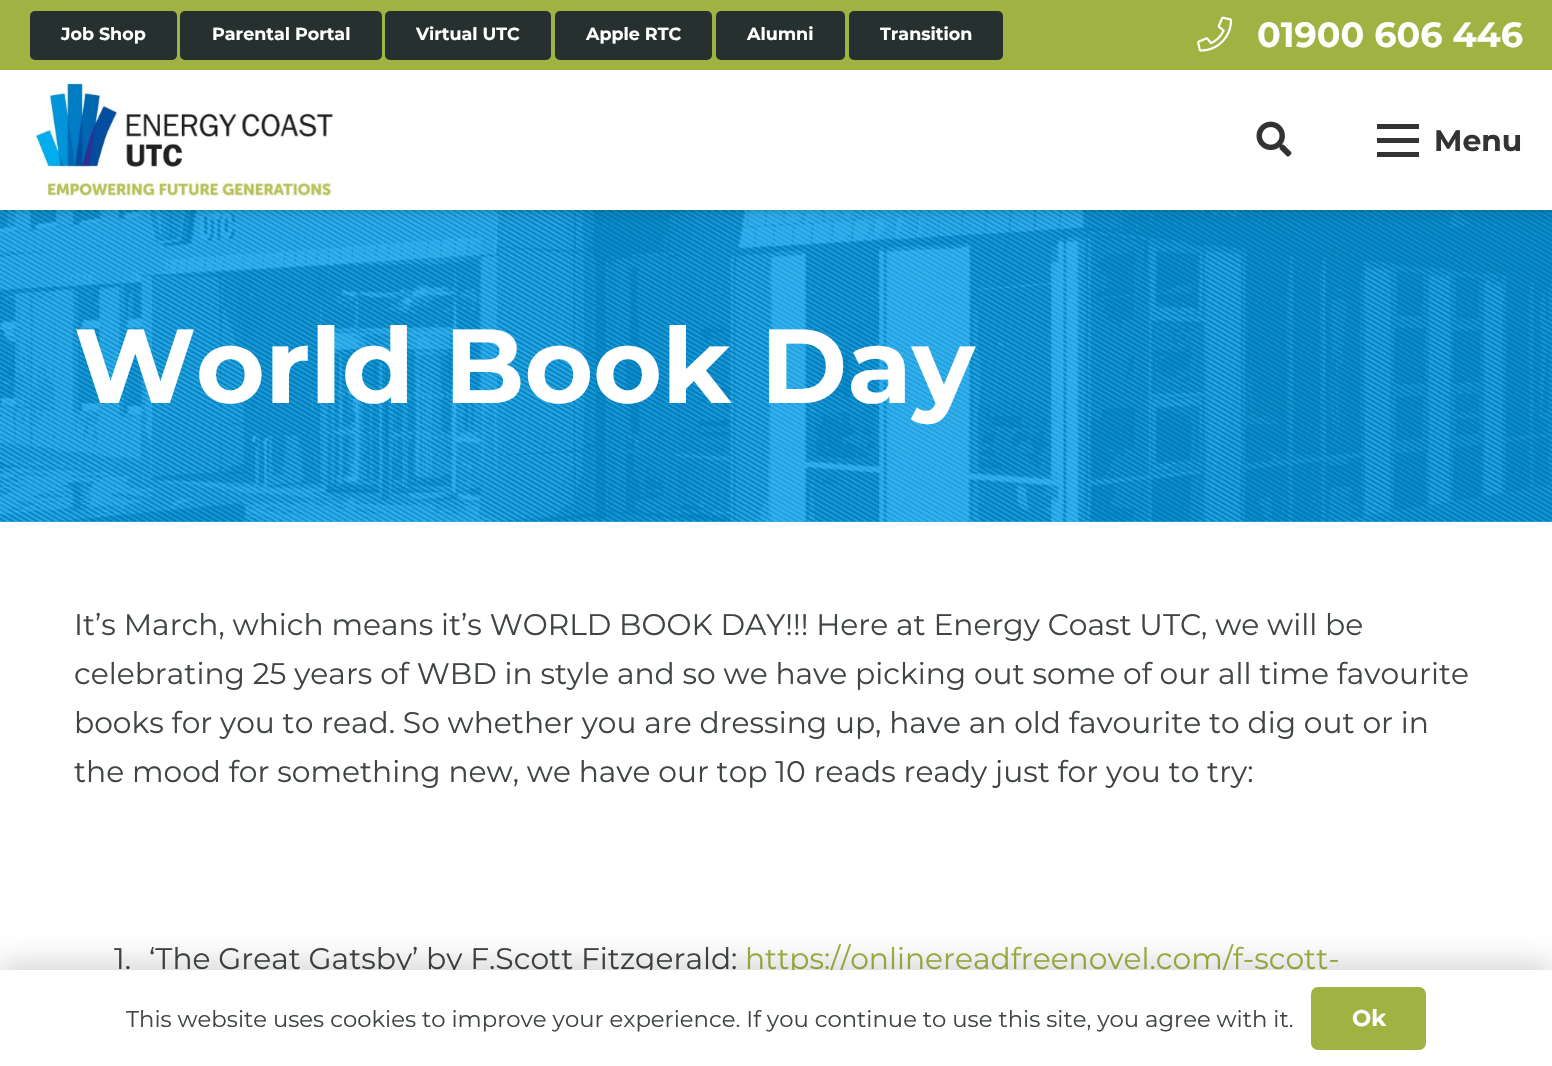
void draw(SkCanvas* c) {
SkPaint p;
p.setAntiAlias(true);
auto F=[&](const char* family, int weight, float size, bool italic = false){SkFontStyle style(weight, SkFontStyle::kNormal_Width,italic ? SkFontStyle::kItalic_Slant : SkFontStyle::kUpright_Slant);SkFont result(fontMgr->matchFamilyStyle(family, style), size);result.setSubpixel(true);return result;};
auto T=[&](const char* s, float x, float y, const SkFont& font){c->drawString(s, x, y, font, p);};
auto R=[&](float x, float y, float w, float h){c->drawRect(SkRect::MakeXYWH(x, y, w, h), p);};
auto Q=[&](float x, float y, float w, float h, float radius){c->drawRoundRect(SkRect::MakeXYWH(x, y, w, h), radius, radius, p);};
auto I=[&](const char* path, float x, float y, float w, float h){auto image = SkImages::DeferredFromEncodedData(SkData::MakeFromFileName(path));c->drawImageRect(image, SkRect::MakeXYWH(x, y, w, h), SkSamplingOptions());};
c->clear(0xffffffff);
p.setColor(0xff33b1ed);
R(0,521,1552,1);
p.setColor(0xffa0b342);
R(0,0,1552,70);
p.setColor(0xff26302f);
Q(30,11,147,49,5);
auto f1 = F("Montserrat",700,17.5);
p.setColor(0xffffffff);
T("Job Shop",61,40,f1);
p.setColor(0xff26302f);
Q(180,11,202,49,5);
p.setColor(0xffffffff);
T("Parental Portal",212,40,f1);
p.setColor(0xff26302f);
Q(385,11,166,49,5);
p.setColor(0xffffffff);
T("Virtual UTC",416,40,f1);
p.setColor(0xff26302f);
Q(555,11,157,49,5);
p.setColor(0xffffffff);
T("Apple RTC",586,40,f1);
p.setColor(0xff26302f);
Q(716,11,129,49,5);
p.setColor(0xffffffff);
T("Alumni",747,40,f1);
p.setColor(0xff26302f);
Q(849,11,154,49,5);
p.setColor(0xffffffff);
T("Transition",880,40,f1);
I("1.png",1197,16,36,36);
auto f2 = F("Montserrat",700,35);
T("01900 606 446",1257,47,f2);
I("4.png",0,210,1552,312);
p.setColor(0x0d000000);
p.setMaskFilter(SkMaskFilter::MakeBlur(kNormal_SkBlurStyle, 1));
c->drawRect(SkRect::MakeXYWH(2,75,1549,137),p);
p.setMaskFilter(nullptr);
p.setColor(0x1a000000);
p.setMaskFilter(SkMaskFilter::MakeBlur(kNormal_SkBlurStyle, 4.5));
c->drawRect(SkRect::MakeXYWH(2,77,1549,137),p);
p.setMaskFilter(nullptr);
p.setColor(0xffffffff);
R(0,71,1552,139);
I("2.png",34,83,299,114);
I("3.png",1256,121,36,36);
p.setColor(0xff333333);
R(1377,138,42,5);
R(1377,124,42,5);
R(1377,152,42,5);
auto f3 = F("Montserrat",700,29.75);
T("Menu",1434,151,f3);
auto f4 = F("Montserrat",700,105);
p.setColor(0xffffffff);
T("World Book Day",74,403,f4);
auto f5 = F("Montserrat",400,29.75);
p.setColor(0xff3f4544);
T("It’s March, which means it’s WORLD BOOK DAY!!! Here at Energy Coast UTC, we will be",74,635,f5);
T("celebrating 25 years of WBD in style and so we have picking out some of our all time favourite",74,684,f5);
T("books for you to read. So whether you are dressing up, have an old favourite to dig out or in",74,733,f5);
T("the mood for something new, we have our top 10 reads ready just for you to try:",74,782,f5);
T("1.",114,969,f5);
T("‘The Great Gatsby’ by F.Scott Fitzgerald:",149,969,f5);
p.setColor(0xffa0b342);
T("https://onlinereadfreenovel.com/f-scott-",745,969,f5);
p.setColor(0x26000000);
p.setMaskFilter(SkMaskFilter::MakeBlur(kNormal_SkBlurStyle, 13));
c->drawRect(SkRect::MakeXYWH(0,961,1552,98),p);
p.setMaskFilter(nullptr);
p.setColor(0xffffffff);
R(0,970,1552,96);
auto f6 = F("Montserrat",400,22.75);
p.setColor(0xff3f4544);
T("This website uses cookies to improve your experience. If you continue to use this site, you agree with it.",126,1027,f6);
p.setColor(0xffa0b342);
Q(1311,987,115,63,7);
auto f7 = F("Montserrat",700,22.75);
p.setColor(0xffffffff);
T("Ok",1352,1026,f7);
}
